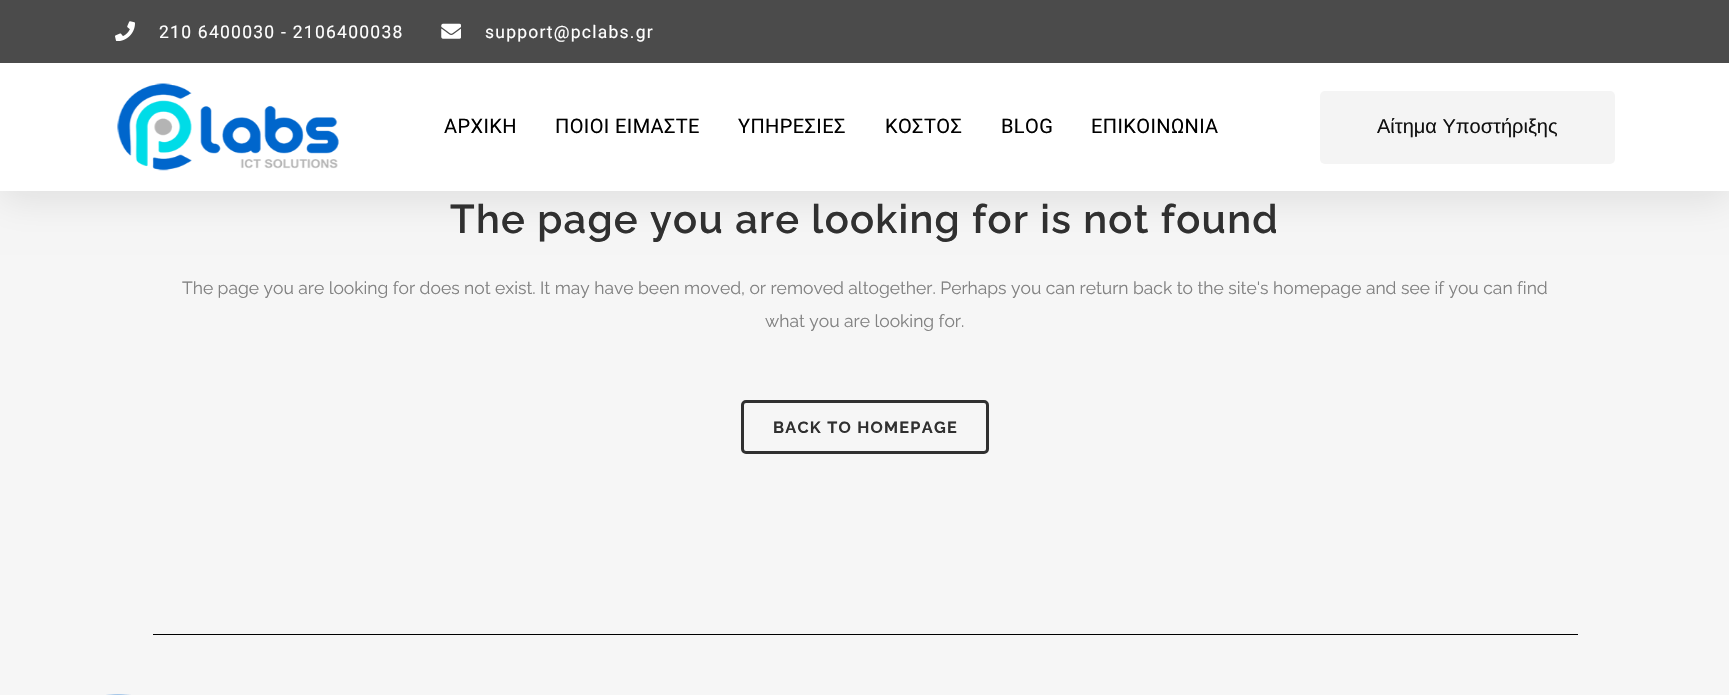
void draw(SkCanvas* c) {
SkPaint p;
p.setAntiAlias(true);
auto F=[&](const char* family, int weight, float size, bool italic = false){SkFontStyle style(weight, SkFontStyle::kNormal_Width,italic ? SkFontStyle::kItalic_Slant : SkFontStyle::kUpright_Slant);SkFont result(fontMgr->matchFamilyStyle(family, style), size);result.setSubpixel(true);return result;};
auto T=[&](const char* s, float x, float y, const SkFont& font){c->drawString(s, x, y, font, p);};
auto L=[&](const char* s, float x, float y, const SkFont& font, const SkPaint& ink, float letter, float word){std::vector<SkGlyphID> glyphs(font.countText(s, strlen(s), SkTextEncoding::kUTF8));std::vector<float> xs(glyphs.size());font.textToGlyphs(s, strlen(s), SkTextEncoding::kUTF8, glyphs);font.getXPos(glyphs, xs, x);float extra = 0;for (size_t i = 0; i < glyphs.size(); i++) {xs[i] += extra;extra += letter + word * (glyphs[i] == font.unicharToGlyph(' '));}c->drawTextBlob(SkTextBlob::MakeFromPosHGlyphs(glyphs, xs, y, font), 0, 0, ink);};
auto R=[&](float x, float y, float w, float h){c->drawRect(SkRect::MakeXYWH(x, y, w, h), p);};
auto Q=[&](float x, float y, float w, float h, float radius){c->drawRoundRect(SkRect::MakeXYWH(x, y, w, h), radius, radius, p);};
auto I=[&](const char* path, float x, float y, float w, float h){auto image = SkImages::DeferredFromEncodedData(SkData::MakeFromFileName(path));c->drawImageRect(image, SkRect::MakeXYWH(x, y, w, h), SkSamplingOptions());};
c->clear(0xfff6f6f6);
p.setColor(0x1a000000);
p.setMaskFilter(SkMaskFilter::MakeBlur(kNormal_SkBlurStyle, 19));
c->drawRect(SkRect::MakeXYWH(0,6,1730,192),p);
p.setMaskFilter(nullptr);
p.setColor(0xff4b4b4b);
R(0,0,1729,63);
I("1.png",115,21,20,20);
auto f1 = F("Roboto",400,17.5);
p.setColor(0xffffffff);
L("210 6400030 - 2106400038",159,38,f1,p,1.25,0);
I("2.png",441,23,20,16);
L("support@pclabs.gr",485,38,f1,p,1.25,0);
R(0,63,1729,128);
I("3.png",117,83,222,88);
auto f2 = F("Roboto",400,20);
p.setColor(0xff000000);
L("ΑΡΧΙΚΗ",444,133,f2,p,.4,0);
L("ΠΟΙΟΙ ΕΙΜΑΣΤΕ",555,133,f2,p,.4,0);
L("ΥΠΗΡΕΣΙΕΣ",738,133,f2,p,.4,0);
L("ΚΟΣΤΟΣ",885,133,f2,p,.4,0);
L("BLOG",1001,133,f2,p,.4,0);
L("ΕΠΙΚΟΙΝΩΝΙΑ",1091,133,f2,p,.4,0);
p.setColor(0xfff4f4f4);
Q(1320,91,295,73,5);
auto f3 = F("Liberation Sans",400,20);
p.setColor(0xff111111);
T("Αίτημα Υποστήριξης",1377,133,f3);
auto f4 = F("Raleway",600,40);
p.setColor(0xff303030);
L("The page you are looking for is not found",450,233,f4,p,1.25,0);
auto f5 = F("Raleway",400,17.5);
p.setColor(0xff818181);
T("The page you are looking for does not exist. It may have been moved, or removed altogether. Perhaps you can return back to the site's homepage and see if you can find",182,294,f5);
T("what you are looking for.",765,327,f5);
p.setStroke(true);
p.setStrokeWidth(3);
p.setColor(0xff303030);
c->drawRoundRect(SkRect::MakeXYWH(742.5,401.5,245,51),3.5,3.5,p);
auto f6 = F("Raleway",700,16.25);
p.setStroke(false);
L("BACK TO HOMEPAGE",773,433,f6,p,1.25,0);
p.setColor(0xff000000);
R(153,634,1425,1);
I("4.png",106,694,25,1);
}
